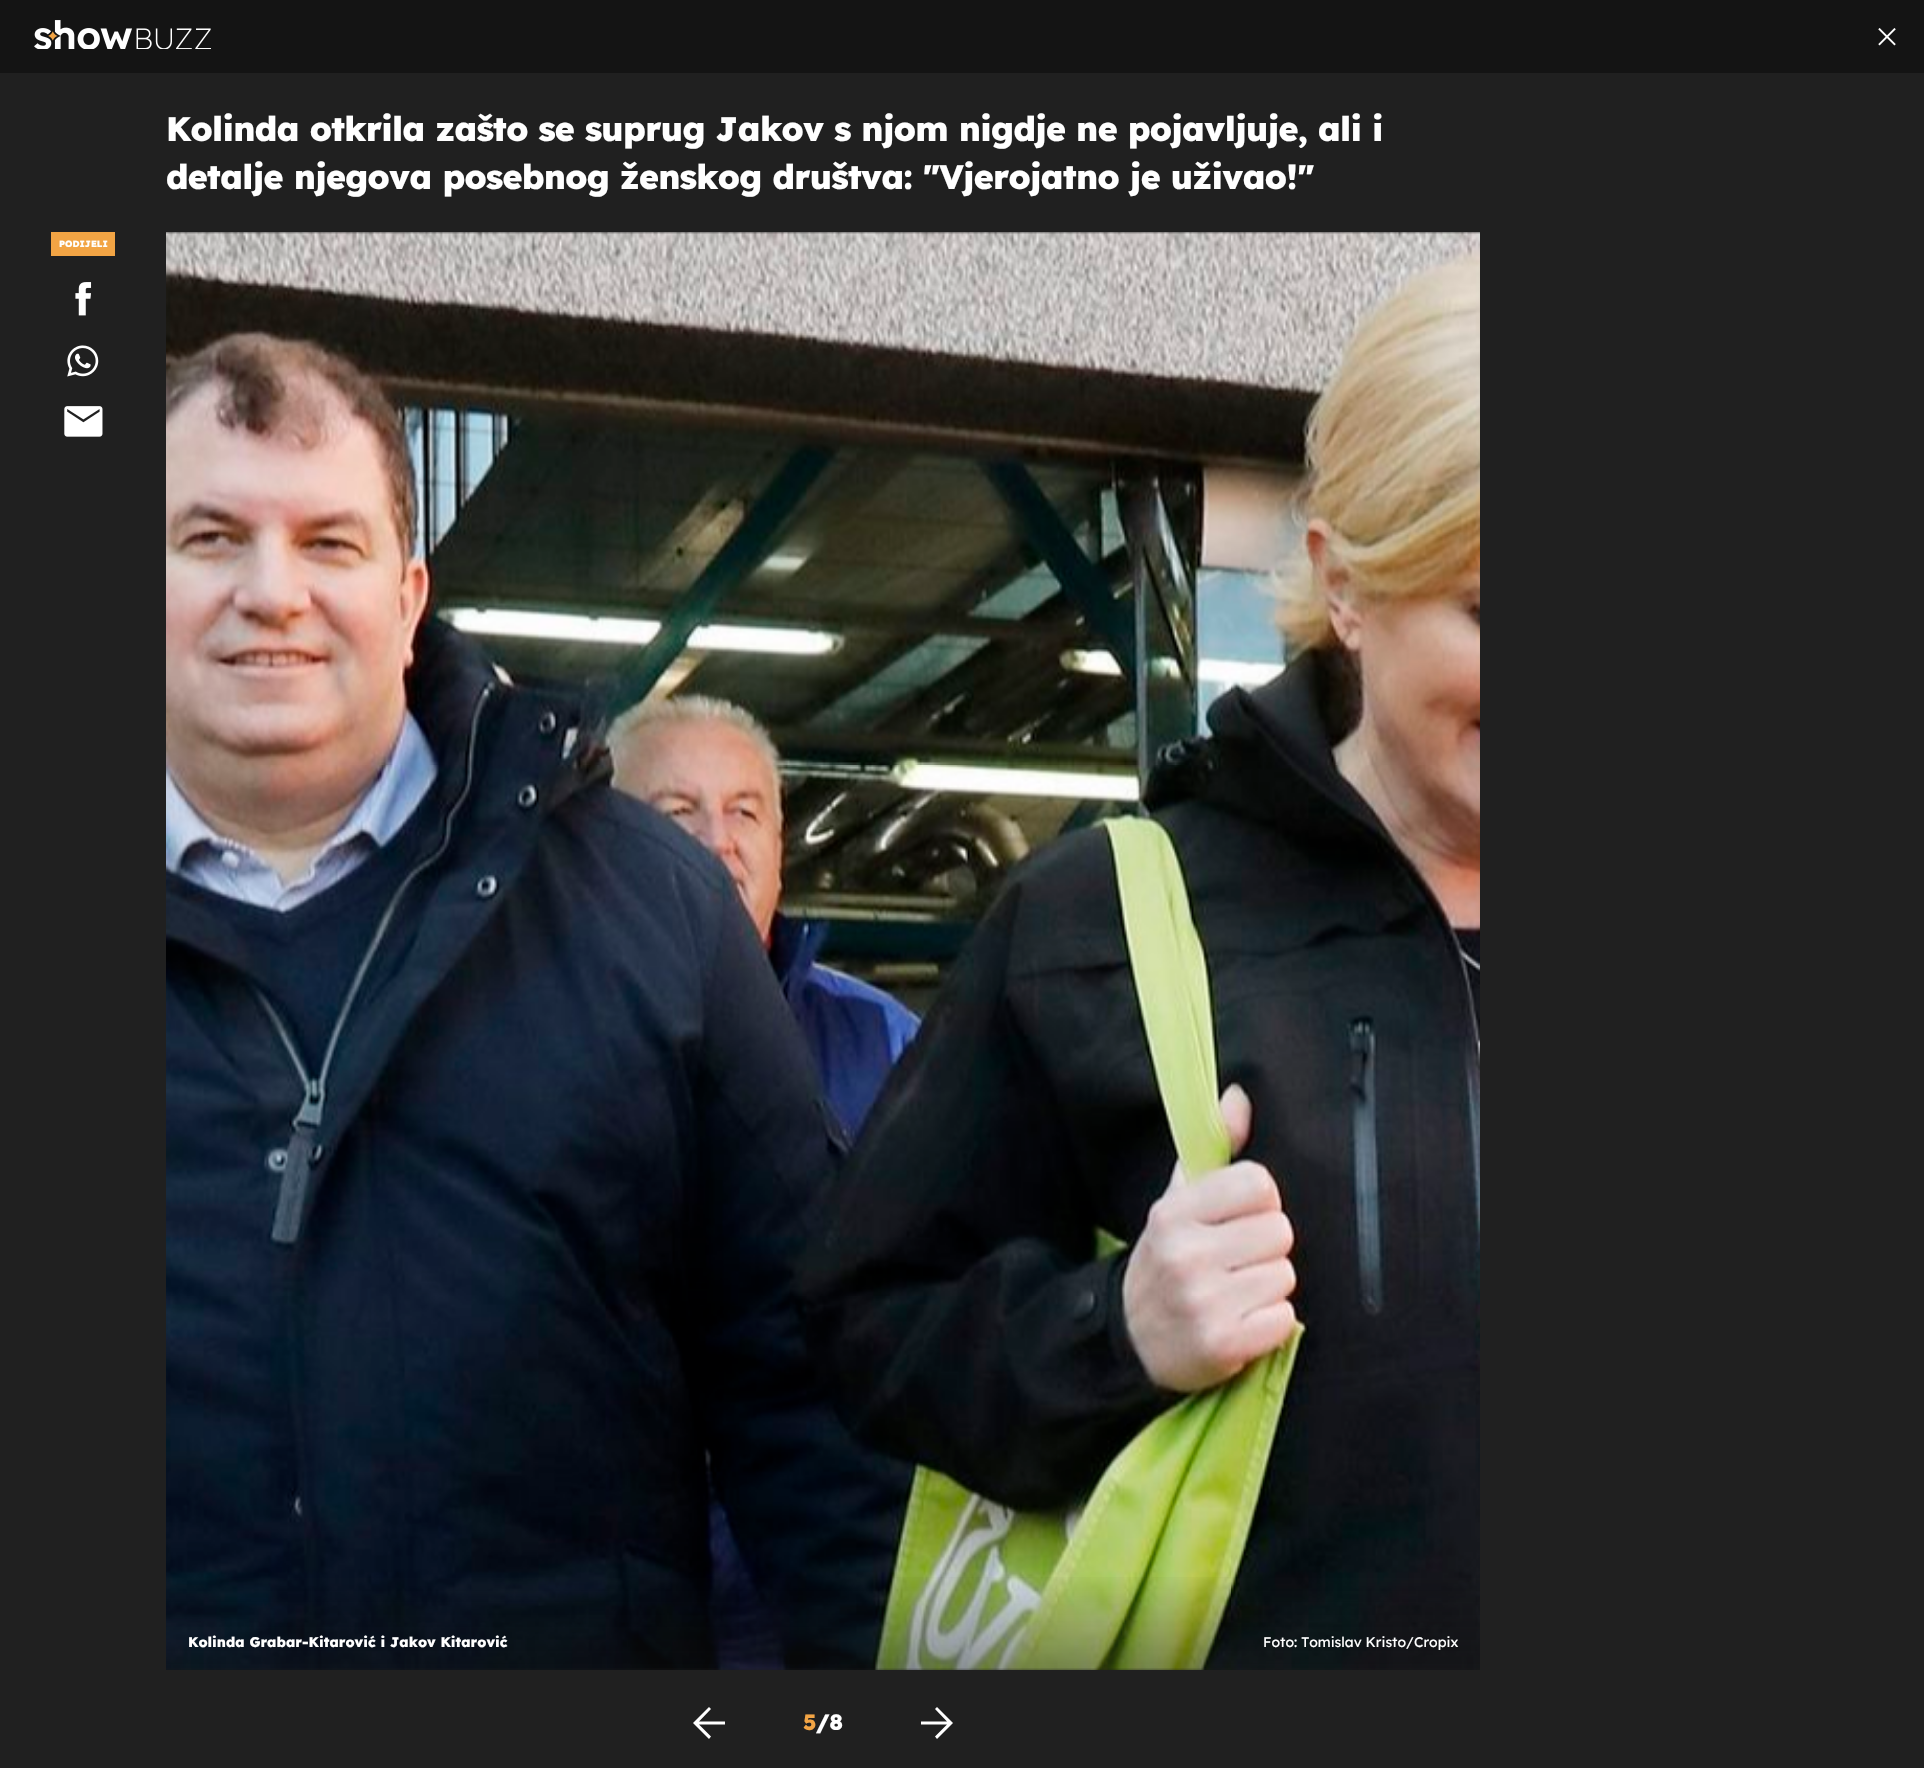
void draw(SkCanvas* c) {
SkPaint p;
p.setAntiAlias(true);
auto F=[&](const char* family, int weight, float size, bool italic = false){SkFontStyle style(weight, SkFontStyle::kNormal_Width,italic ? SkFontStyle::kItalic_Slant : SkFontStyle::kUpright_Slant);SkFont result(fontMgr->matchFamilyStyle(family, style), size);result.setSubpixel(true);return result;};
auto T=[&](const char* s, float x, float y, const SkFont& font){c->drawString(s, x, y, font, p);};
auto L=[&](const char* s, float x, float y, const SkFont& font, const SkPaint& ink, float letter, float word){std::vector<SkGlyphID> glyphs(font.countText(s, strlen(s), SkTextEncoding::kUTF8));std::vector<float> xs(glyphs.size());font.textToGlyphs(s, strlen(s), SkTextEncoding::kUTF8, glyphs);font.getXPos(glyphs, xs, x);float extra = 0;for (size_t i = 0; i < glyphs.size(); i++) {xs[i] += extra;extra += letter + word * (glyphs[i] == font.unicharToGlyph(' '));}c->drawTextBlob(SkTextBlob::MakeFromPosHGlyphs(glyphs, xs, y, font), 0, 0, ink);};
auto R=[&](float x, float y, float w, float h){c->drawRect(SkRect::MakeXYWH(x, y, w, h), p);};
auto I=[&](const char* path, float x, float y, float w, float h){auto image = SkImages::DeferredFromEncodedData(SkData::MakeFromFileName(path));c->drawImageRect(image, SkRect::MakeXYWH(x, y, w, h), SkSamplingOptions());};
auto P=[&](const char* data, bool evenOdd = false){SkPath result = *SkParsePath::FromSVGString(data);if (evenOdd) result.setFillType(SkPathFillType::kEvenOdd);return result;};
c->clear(0xff202020);
p.setColor(0xff141414);
R(0,0,1924,73);
I("1.png",34,20,177,29);
I("2.png",1878,28,18,18);
auto f1 = F("Lexend",800,34);
p.setColor(0xffffffff);
L("Kolinda otkrila zašto se suprug Jakov s njom nigdje ne pojavljuje, ali i",166,141,f1,p,-.68,0);
L("detalje njegova posebnog ženskog društva: \"Vjerojatno je uživao!\"",166,189,f1,p,-.68,0);
p.setColor(0xfff2a444);
R(51,232,64,24);
auto f2 = F("Lexend",800,9);
p.setColor(0xffffffff);
T("PODIJELI",59,247,f2);
I("3.png",75,282,17,34);
I("4.png",67,345,32,32);
I("5.png",64,406,39,31);
I("6.png",166,232,1314,1438);
{
const SkColor colors[] = {0x66141414,0x00141414};
const float stops[] = {0,1};
const SkPoint ends[] = {{823,1670}, {823,1572}};
p.setShader(SkGradientShader::MakeLinear(ends, colors, stops, 2, SkTileMode::kClamp));
p.setAlpha(255);
}
R(166,1577,1314,93);
auto f3 = F("Lexend",800,14);
p.setShader(nullptr);
p.setColor(0xffffffff);
T("Kolinda Grabar-Kitarović i Jakov Kitarović",188,1647,f3);
auto f4 = F("Lexend",400,14);
T("Foto: Tomislav Kristo/Cropix",1263,1647,f4);
c->drawPath(P("M709 1739l2-2.5l-12-12h26v-3h-26l12-12.5l-2-2l-16 16z"),p);
auto f5 = F("Lexend",800,22);
p.setColor(0xfff2a444);
T("5",803,1730,f5);
p.setColor(0xffffffff);
T("/8",816,1730,f5);
c->drawPath(P("M937 1739l-2-2.5l12-12h-26v-3h26l-12-12.5l2-2l16 16z"),p);
}
